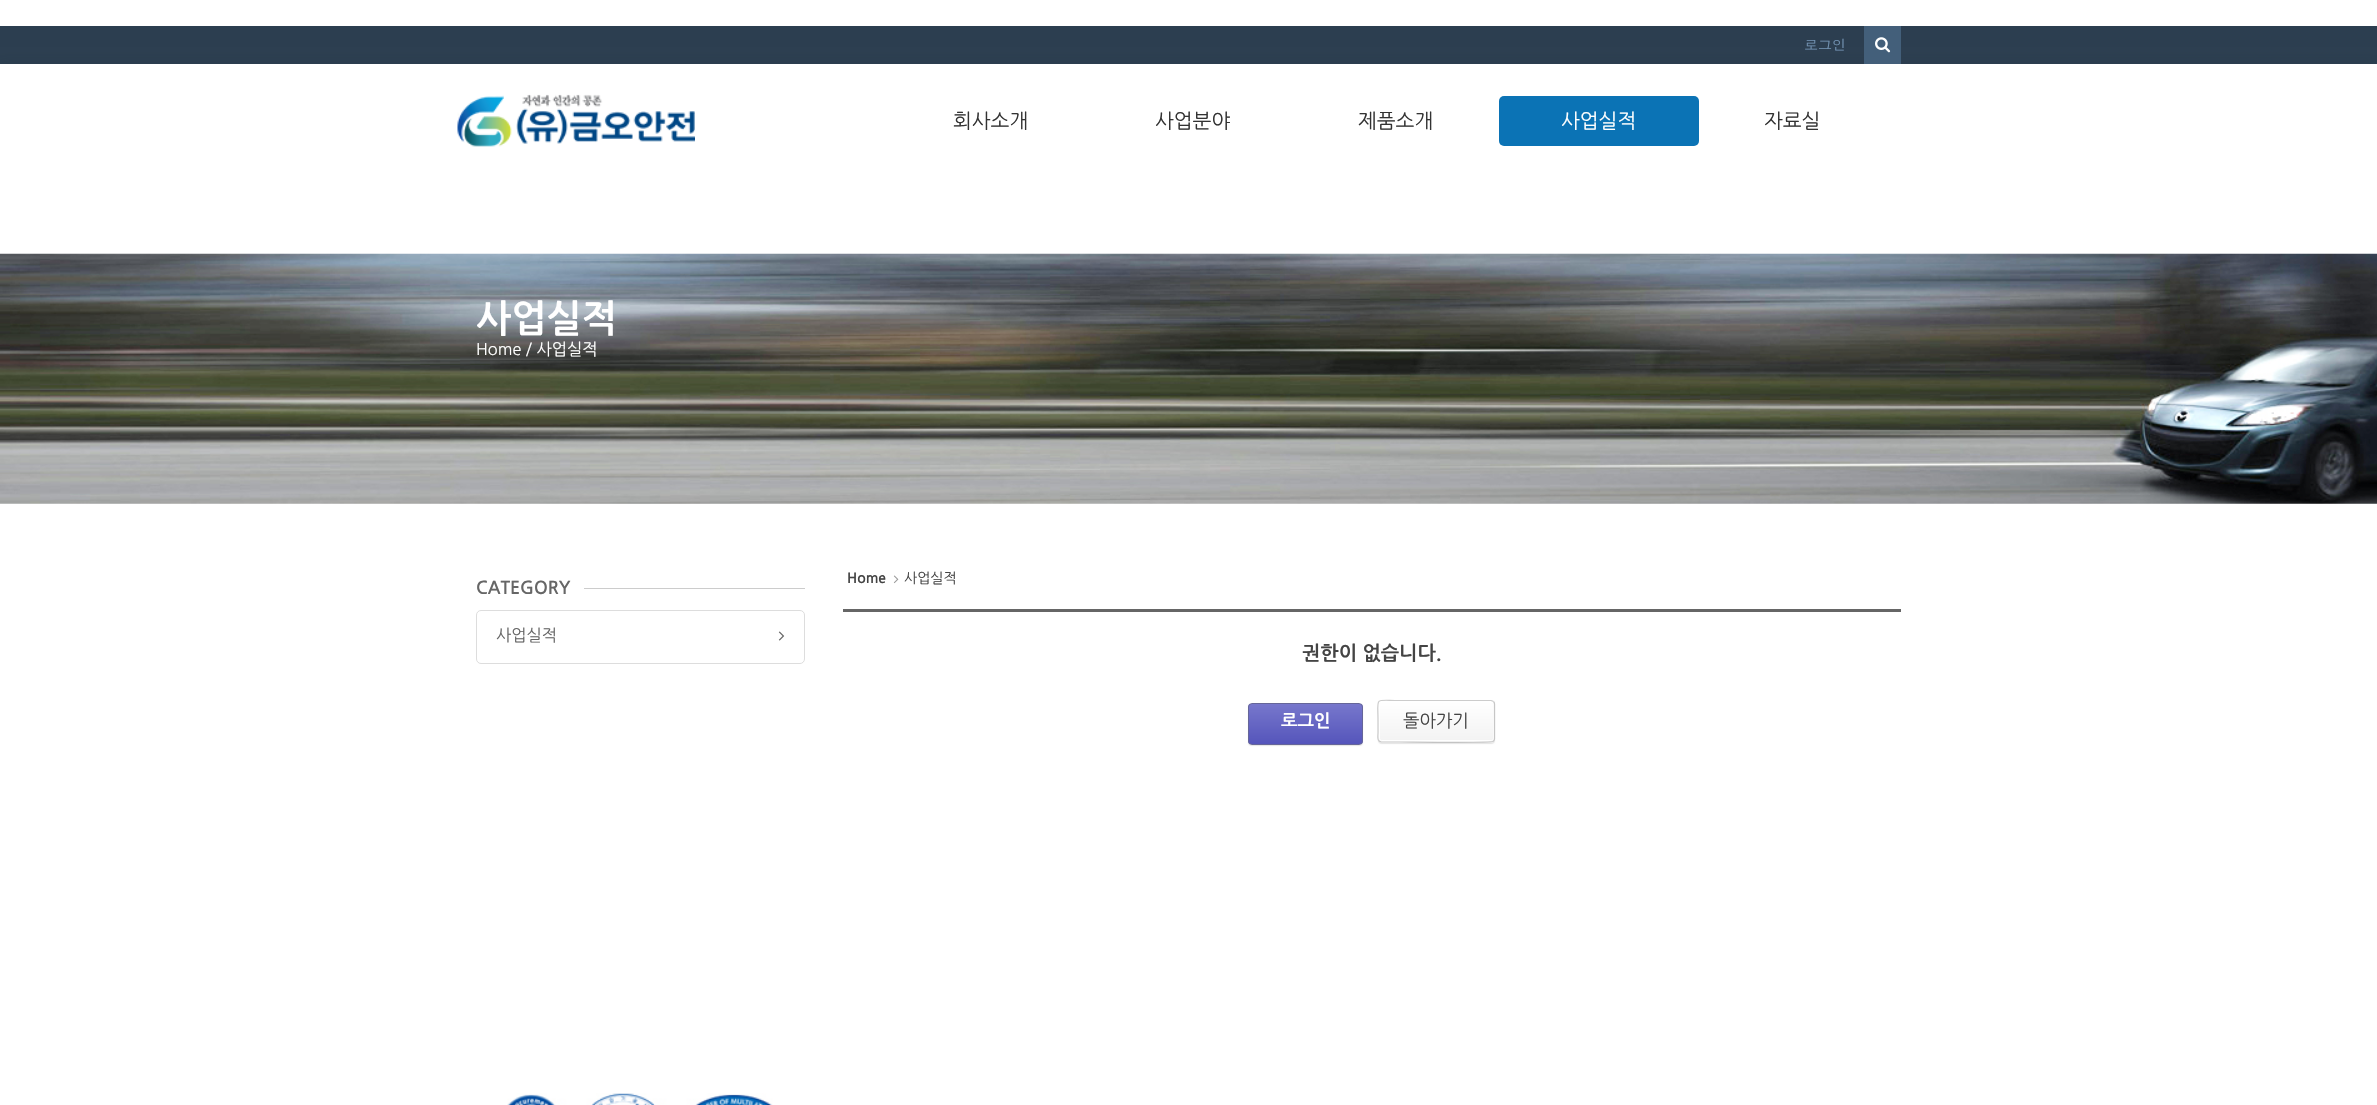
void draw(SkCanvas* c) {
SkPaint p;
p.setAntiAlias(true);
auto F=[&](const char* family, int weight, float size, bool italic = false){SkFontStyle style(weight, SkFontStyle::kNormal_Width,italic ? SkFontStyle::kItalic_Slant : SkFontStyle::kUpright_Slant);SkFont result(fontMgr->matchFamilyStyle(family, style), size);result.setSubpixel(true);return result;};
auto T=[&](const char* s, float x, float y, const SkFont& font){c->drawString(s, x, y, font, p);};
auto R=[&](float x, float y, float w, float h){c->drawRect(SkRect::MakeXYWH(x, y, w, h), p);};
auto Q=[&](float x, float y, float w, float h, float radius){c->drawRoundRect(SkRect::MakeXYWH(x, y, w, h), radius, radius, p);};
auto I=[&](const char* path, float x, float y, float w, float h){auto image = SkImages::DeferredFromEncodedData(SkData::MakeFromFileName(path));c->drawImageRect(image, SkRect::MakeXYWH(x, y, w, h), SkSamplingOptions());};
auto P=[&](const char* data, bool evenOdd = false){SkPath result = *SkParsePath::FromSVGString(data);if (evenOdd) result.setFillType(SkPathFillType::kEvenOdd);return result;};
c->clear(0xffffffff);
p.setColor(0xff2c3e50);
R(0,26,2377,38);
p.setColor(0x401f323f);
p.setMaskFilter(SkMaskFilter::MakeBlur(kNormal_SkBlurStyle, 6));
c->drawRect(SkRect::MakeXYWH(0,65,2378,190),p);
p.setMaskFilter(nullptr);
auto f1 = F("Dotum",400,14);
p.setColor(0xff7393b3);
T("로그인",1804,50,f1);
p.setColor(0xff435f7a);
R(1864,26,37,38);
I("1.png",1875,37,16,16);
p.setColor(0xffffffff);
R(0,64,2377,190);
I("2.png",457,94,238,53);
auto f2 = F("NanumGothic",400,20);
p.setColor(0xff333333);
T("회사소개",953,128,f2);
T("사업분야",1155,128,f2);
T("제품소개",1358,128,f2);
p.setColor(0xff0b73b5);
Q(1499,96,200,50,5);
p.setColor(0xffffffff);
T("사업실적",1561,128,f2);
p.setColor(0xff333333);
T("자료실",1764,128,f2);
I("3.png",0,253,2377,251);
auto f3 = F("NanumGothic",700,37.5);
p.setColor(0xffffffff);
T("사업실적",476,330,f3);
auto f4 = F("NanumGothic",400,16.25);
T("Home / 사업실적",476,355,f4);
auto f5 = F("NanumGothic",700,17.5);
p.setColor(0xff666666);
T("CATEGORY",476,593,f5);
p.setColor(0xffcccccc);
R(584,588,221,1);
p.setStroke(true);
p.setStrokeWidth(1);
p.setColor(0xffdddddd);
c->drawRoundRect(SkRect::MakeXYWH(476.5,610.5,328,53),4.5,4.5,p);
p.setStroke(false);
p.setColor(0xff666666);
T("사업실적",496,641,f4);
I("4.png",778,631,7,10);
I("5.png",507,1093,266,12);
auto f6 = F("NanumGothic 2",700,14);
p.setColor(0xff444444);
T("Home",847,583,f6);
I("6.png",893,575,6,9);
auto f7 = F("NanumGothic",400,14);
T("사업실적",904,583,f7);
p.setColor(0xff666666);
R(843,609,1058,3);
auto f8 = F("NanumGothic",700,19.5);
p.setColor(0xff444444);
T("권한이 없습니다.",1302,659,f8);
p.setColor(0x1a000000);
p.setMaskFilter(SkMaskFilter::MakeBlur(kNormal_SkBlurStyle, .5));
c->drawRoundRect(SkRect::MakeXYWH(1248,704,115,42),4,4,p);
p.setMaskFilter(nullptr);
c->save();
c->clipPath(P("M1252 703h107c2 0 4 2 4 4v34c0 2-2 4-4 4h-107c-2 0-4-2-4-4v-34c0-2 2-4 4-4z"),true);
{
const SkColor colors[] = {0xff7777cc,0xff5555bb};
const float stops[] = {0,1};
const SkPoint ends[] = {{1305,704}, {1305,744}};
p.setShader(SkGradientShader::MakeLinear(ends, colors, stops, 2, SkTileMode::kClamp));
p.setAlpha(255);
}
R(1248,704,115,40);
c->restore();
p.setStroke(true);
p.setShader(nullptr);
p.setColor(0xff666699);
c->drawRoundRect(SkRect::MakeXYWH(1248.5,703.5,114,41),3.5,3.5,p);
auto f9 = F("NanumGothic 2",700,17.5);
p.setStroke(false);
p.setColor(0xffffffff);
T("로그인",1281,727,f9);
p.setColor(0x1a000000);
p.setMaskFilter(SkMaskFilter::MakeBlur(kNormal_SkBlurStyle, .5));
c->drawRoundRect(SkRect::MakeXYWH(1378,701,117,43),4,4,p);
p.setMaskFilter(nullptr);
c->save();
c->clipPath(P("M1382 700h109c2 0 4 2 4 4v35c0 2-2 4-4 4h-109c-2 0-4-2-4-4v-35c0-2 2-4 4-4z"),true);
{
const SkColor colors[] = {0xffffffff,0xfff3f3f3};
const float stops[] = {0,1};
const SkPoint ends[] = {{1436,661}, {1436,701}};
p.setShader(SkGradientShader::MakeLinear(ends, colors, stops, 2, SkTileMode::kClamp));
p.setAlpha(255);
}
R(1378,700,117,1);
{
const SkColor colors[] = {0xffffffff,0xfff3f3f3};
const float stops[] = {0,1};
const SkPoint ends[] = {{1436,701}, {1436,741}};
p.setShader(SkGradientShader::MakeLinear(ends, colors, stops, 2, SkTileMode::kClamp));
p.setAlpha(255);
}
R(1378,701,117,40);
{
const SkColor colors[] = {0xffffffff,0xfff3f3f3};
const float stops[] = {0,1};
const SkPoint ends[] = {{1436,741}, {1436,781}};
p.setShader(SkGradientShader::MakeLinear(ends, colors, stops, 2, SkTileMode::kClamp));
p.setAlpha(255);
}
R(1378,741,117,2);
c->restore();
p.setStroke(true);
p.setShader(nullptr);
p.setColor(0xffffffff);
c->drawRoundRect(SkRect::MakeXYWH(1379.5,701.5,114,39),2,2,p);
p.setStrokeWidth(1.2);
p.setColor(0xffc6c6c6);
c->drawPath(P("M1493.5 701.5c.5 .5 1 1.5 1 2.5v35c0 .5-.5 1.5-1 2"),p);
p.setColor(0xffc3c3c3);
c->drawPath(P("M1493.5 741l-.5 .5c-2.5 1.5-83.5 .5-93.5 .5h-18.5l-2-1"),p);
p.setColor(0xffcccccc);
c->drawPath(P("M1379 741c-2-2-1-6.5-1-8v-12c0-25-4.5-20.5 21.5-20.5h91.5l2.5 1"),p);
auto f10 = F("NanumGothic",400,17.5);
p.setStroke(false);
p.setColor(0xff444444);
T("돌아가기",1403,727,f10);
}
